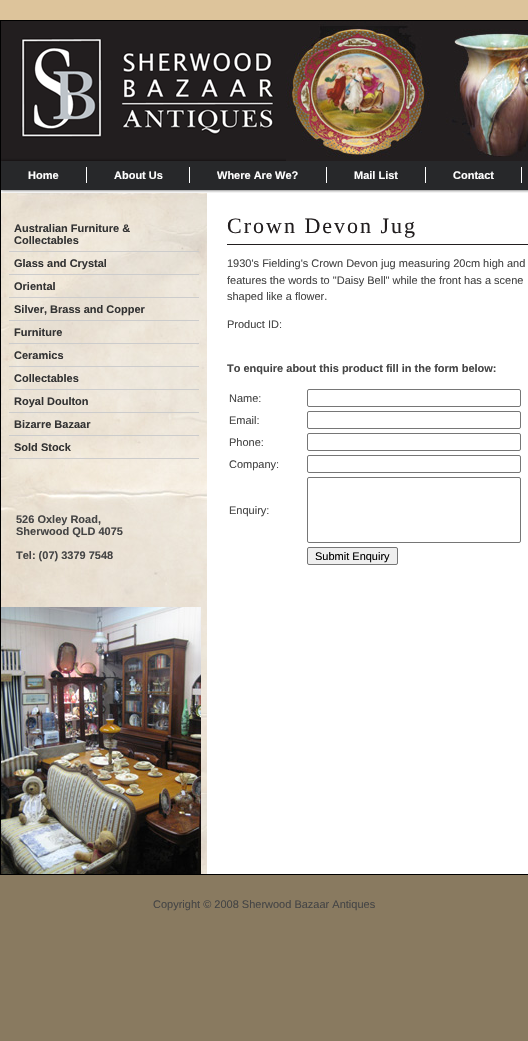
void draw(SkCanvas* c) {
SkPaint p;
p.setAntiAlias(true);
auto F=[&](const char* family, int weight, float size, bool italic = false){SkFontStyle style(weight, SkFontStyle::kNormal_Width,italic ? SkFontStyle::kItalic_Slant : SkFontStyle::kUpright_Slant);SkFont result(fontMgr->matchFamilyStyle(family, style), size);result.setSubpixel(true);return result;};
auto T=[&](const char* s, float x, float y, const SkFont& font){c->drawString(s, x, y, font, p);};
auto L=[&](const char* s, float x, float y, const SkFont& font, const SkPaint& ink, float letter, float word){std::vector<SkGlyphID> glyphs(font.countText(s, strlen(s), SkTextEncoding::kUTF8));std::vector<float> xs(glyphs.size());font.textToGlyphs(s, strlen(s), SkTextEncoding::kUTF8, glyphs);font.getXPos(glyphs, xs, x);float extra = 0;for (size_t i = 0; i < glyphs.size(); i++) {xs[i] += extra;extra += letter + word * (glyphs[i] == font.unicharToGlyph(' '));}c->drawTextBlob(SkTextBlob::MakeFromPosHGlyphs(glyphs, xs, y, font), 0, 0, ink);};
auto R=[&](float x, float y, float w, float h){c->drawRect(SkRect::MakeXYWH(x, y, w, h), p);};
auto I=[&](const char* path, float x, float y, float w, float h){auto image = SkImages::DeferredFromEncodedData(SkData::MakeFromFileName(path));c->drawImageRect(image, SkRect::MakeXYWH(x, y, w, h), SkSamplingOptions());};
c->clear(0xff897a60);
I("1.png",0,0,528,20);
p.setStroke(true);
p.setStrokeWidth(1);
p.setColor(0xff000000);
c->drawRect(SkRect::MakeXYWH(.5,20.5,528,854),p);
I("2.png",1,21,285,140);
I("3.png",286,21,242,140);
I("4.png",1,161,527,32);
p.setStroke(false);
p.setColor(0xffffffff);
R(86,167,1,16);
auto f1 = F("Liberation Sans",700,11);
T("Home",28,179,f1);
R(189,167,1,16);
T("About Us",114,179,f1);
R(326,167,1,16);
T("Where Are We?",217,179,f1);
R(425,167,1,16);
T("Mail List",354,179,f1);
R(521,167,1,16);
T("Contact",453,179,f1);
R(207,193,321,681);
I("5.png",1,193,206,681);
p.setColor(0xffcccccc);
R(9,251,190,1);
p.setColor(0xff333333);
T("Australian Furniture &",14,232,f1);
T("Collectables",14,244,f1);
p.setColor(0xffcccccc);
R(9,274,190,1);
p.setColor(0xff333333);
T("Glass and Crystal",14,267,f1);
p.setColor(0xffcccccc);
R(9,297,190,1);
p.setColor(0xff333333);
T("Oriental",14,290,f1);
p.setColor(0xffcccccc);
R(9,320,190,1);
p.setColor(0xff333333);
T("Silver, Brass and Copper",14,313,f1);
p.setColor(0xffcccccc);
R(9,343,190,1);
p.setColor(0xff333333);
T("Furniture",14,336,f1);
p.setColor(0xffcccccc);
R(9,366,190,1);
p.setColor(0xff333333);
T("Ceramics",14,359,f1);
p.setColor(0xffcccccc);
R(9,389,190,1);
p.setColor(0xff333333);
T("Collectables",14,382,f1);
p.setColor(0xffcccccc);
R(9,412,190,1);
p.setColor(0xff333333);
T("Royal Doulton",14,405,f1);
p.setColor(0xffcccccc);
R(9,435,190,1);
p.setColor(0xff333333);
T("Bizarre Bazaar",14,428,f1);
p.setColor(0xffcccccc);
R(9,458,190,1);
p.setColor(0xff333333);
T("Sold Stock",14,451,f1);
p.setColor(0xff454545);
T("526 Oxley Road,",16,523,f1);
T("Sherwood QLD 4075",16,535,f1);
T("Tel: (07) 3379 7548",16,559,f1);
I("6.png",1,607,200,267);
p.setColor(0xff221e1f);
R(227,244,301,1);
auto f2 = F("Liberation Serif",400,22);
L("Crown Devon Jug",227,233,f2,p,2,0);
auto f3 = F("Liberation Sans",400,11);
p.setColor(0xff454545);
T("1930's Fielding's Crown Devon jug measuring 20cm high and",227,267,f3);
T("features the words to \"Daisy Bell\" while the front has a scene",227,284,f3);
T("shaped like a flower.",227,300,f3);
T("Product ID:",227,328,f3);
T("To enquire about this product fill in the form below:",227,372,f1);
T("Name:",229,402,f3);
p.setStroke(true);
p.setColor(0xff767676);
c->drawRoundRect(SkRect::MakeXYWH(307.5,389.5,213,17),1.5,1.5,p);
p.setStroke(false);
p.setColor(0xff454545);
T("Email:",229,424,f3);
p.setStroke(true);
p.setColor(0xff767676);
c->drawRoundRect(SkRect::MakeXYWH(307.5,411.5,213,17),1.5,1.5,p);
p.setStroke(false);
p.setColor(0xff454545);
T("Phone:",229,446,f3);
p.setStroke(true);
p.setColor(0xff767676);
c->drawRoundRect(SkRect::MakeXYWH(307.5,433.5,213,17),1.5,1.5,p);
p.setStroke(false);
p.setColor(0xff454545);
T("Company:",229,468,f3);
p.setStroke(true);
p.setColor(0xff767676);
c->drawRoundRect(SkRect::MakeXYWH(307.5,455.5,213,17),1.5,1.5,p);
p.setStroke(false);
p.setColor(0xff454545);
T("Enquiry:",229,514,f3);
p.setStroke(true);
p.setColor(0xff767676);
c->drawRoundRect(SkRect::MakeXYWH(307.5,477.5,213,65),1.5,1.5,p);
p.setStroke(false);
p.setColor(0xffefefef);
c->drawRoundRect(SkRect::MakeXYWH(307.5,547.5,90,17),1.5,1.5,p);
p.setStroke(true);
p.setColor(0xff767676);
c->drawRoundRect(SkRect::MakeXYWH(307.5,547.5,90,17),1.5,1.5,p);
p.setStroke(false);
p.setColor(0xff000000);
T("Submit Enquiry",315,560,f3);
p.setColor(0xff454545);
T("Copyright © 2008 Sherwood Bazaar Antiques",153,908,f3);
}
